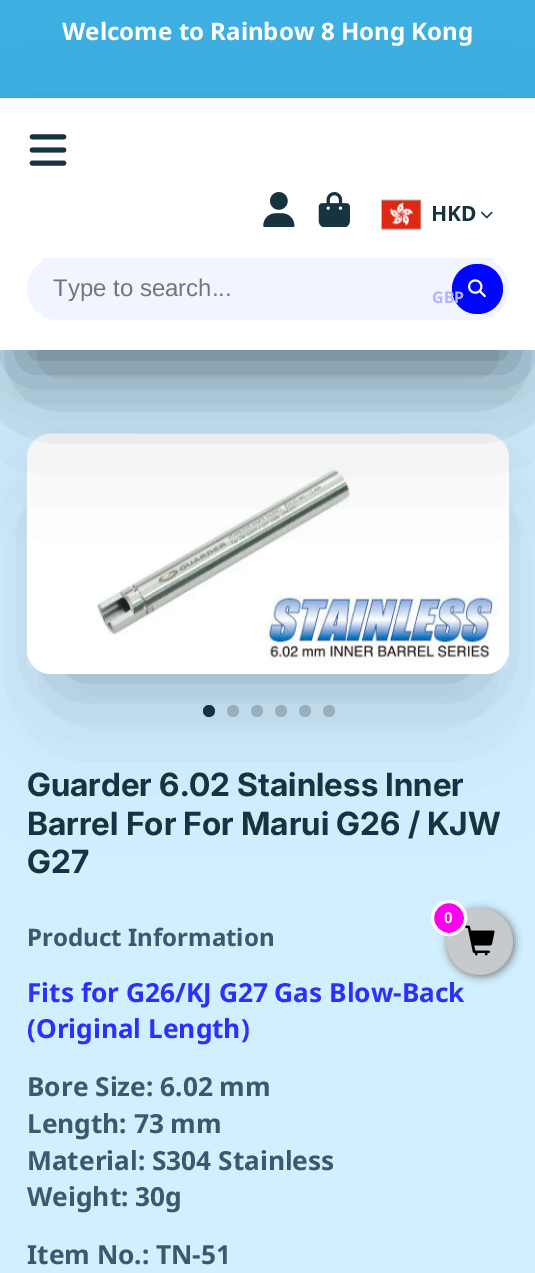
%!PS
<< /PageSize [535 1273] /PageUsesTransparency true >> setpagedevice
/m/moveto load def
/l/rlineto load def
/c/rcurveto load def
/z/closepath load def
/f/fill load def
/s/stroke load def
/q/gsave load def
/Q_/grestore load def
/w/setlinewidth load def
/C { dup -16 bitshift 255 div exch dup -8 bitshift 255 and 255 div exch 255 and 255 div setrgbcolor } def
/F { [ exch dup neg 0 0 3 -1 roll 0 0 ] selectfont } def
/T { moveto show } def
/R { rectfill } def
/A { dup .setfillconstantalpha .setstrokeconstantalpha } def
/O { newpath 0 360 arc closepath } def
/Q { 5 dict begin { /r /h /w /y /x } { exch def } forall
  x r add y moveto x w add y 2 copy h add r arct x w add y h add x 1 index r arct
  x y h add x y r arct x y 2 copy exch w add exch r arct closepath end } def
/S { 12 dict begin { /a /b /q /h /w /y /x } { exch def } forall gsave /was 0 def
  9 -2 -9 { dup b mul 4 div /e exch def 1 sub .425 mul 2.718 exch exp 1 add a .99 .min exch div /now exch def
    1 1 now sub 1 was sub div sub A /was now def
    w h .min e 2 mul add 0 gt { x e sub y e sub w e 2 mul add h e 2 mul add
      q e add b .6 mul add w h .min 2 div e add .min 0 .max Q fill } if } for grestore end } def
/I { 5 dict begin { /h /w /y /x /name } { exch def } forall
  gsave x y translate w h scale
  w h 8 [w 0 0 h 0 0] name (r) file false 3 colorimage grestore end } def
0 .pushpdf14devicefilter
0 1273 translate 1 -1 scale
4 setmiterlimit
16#D1EFFF C
0 0 535 1273 R
16#3EAFE1 C
0 0 535 98 R
/NotoSans-Bold 24.1 F
16#FFFFFF C
(Welcome to Rainbow 8 Hong Kong) 62 40 T
16#163340 C
209 711 6 O f
16#A7BFCC C
233 711 6 O f
257 711 6 O f
281 711 6 O f
305 711 6 O f
329 711 6 O f
16#0F242D C
66 513 404 161 0 39.5 .3 S
54 525 429 188 0 65.5 .1 S
16#FFFFFF C
27 434 482 240 24 Q f
(7.rgb) 27 433 481 234 I
16#0F242D C
21 158 494 210 0 29 .4 S
21 185 494 210 0 65.5 .3 S
16#FFFFFF C
0 98 535 252 R
(1.rgb) 29 134 38 32 I
16#F2F5FF C
27 258 482 60 30 Q f
42 258 452 60 R
27 258 482 62 31 Q f
/LiberationSans-Regular 24 F
16#757575 C
(Type to search...) 53 296 T
16#0006FF C
452 264 51 50 25 Q f
(2.rgb) 468 279 18 18 I
(3.rgb) 263 192 32 35 I
(4.rgb) 318 192 32 35 I
(5.rgb) 381 199 41 32 I
/NotoSans-Bold 21 F
16#163340 C
(HKD) 431 221 T
/NotoSans-Bold 16 F
16#B1B4FF C
(GBP) 432 303 T
(6.rgb) 480 211 13 8 I
/Inter-Bold 32 F
16#163340 C
(Guarder 6.02 Stainless Inner) 27 796 T
(Barrel For For Marui G26 / KJW) 27 835 T
(G27) 27 873 T
/NotoSans-Bold 24.1 F
16#3B5966 C
(Product Information) 27 946 T
/NotoSans-Bold 26.25 F
16#2A30FF C
(Fits for G26/KJ G27 Gas Blow-Back) 27 1002 T
(\(Original Length\)) 27 1038 T
16#3B5966 C
(Bore Size: 6.02 mm) 27 1096 T
(Length: 73 mm) 27 1133 T
(Material: S304 Stainless) 27 1170 T
(Weight: 30g) 27 1206 T
(Item No.: TN-51) 27 1264 T
q
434 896 m 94 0 l 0 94 l -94 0 l z 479.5 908 m 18.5 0 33.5 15 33.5 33.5 c 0 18.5 -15 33.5 -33.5 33.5 c -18.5 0 -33.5 -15 -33.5 -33.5 c 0 -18.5 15 -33.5 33.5 -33.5 c z eoclip newpath
16#808080 C
447 909 68 68 34 4 1 S
Q_
0.9 A
16#C6C6C6 C
479.5 941.5 33.5 O f
1 A
(8.rgb) 465 925 30 31 I
16#FF00EC C
449 918 16.5 O q f Q_
16#FFFFFF C
3 w
s
/Roboto-Bold 15 F
(0) 444 923 T
.poppdf14devicefilter showpage
